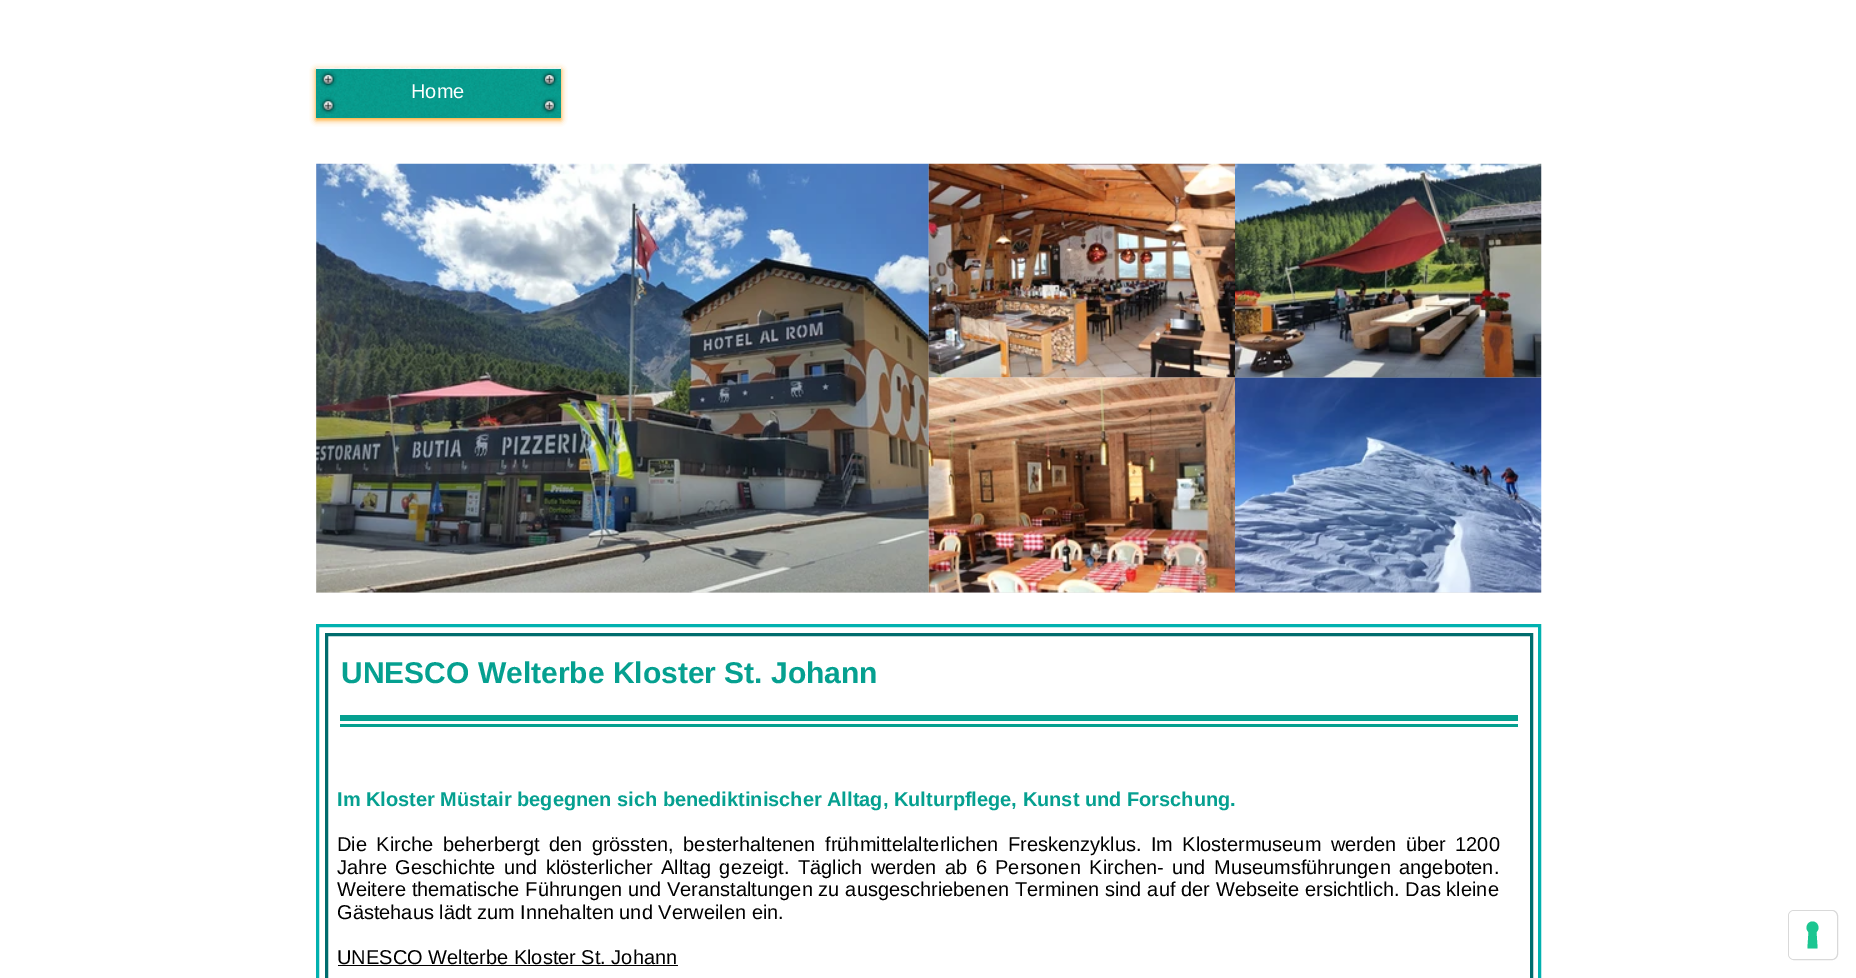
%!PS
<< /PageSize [1856 978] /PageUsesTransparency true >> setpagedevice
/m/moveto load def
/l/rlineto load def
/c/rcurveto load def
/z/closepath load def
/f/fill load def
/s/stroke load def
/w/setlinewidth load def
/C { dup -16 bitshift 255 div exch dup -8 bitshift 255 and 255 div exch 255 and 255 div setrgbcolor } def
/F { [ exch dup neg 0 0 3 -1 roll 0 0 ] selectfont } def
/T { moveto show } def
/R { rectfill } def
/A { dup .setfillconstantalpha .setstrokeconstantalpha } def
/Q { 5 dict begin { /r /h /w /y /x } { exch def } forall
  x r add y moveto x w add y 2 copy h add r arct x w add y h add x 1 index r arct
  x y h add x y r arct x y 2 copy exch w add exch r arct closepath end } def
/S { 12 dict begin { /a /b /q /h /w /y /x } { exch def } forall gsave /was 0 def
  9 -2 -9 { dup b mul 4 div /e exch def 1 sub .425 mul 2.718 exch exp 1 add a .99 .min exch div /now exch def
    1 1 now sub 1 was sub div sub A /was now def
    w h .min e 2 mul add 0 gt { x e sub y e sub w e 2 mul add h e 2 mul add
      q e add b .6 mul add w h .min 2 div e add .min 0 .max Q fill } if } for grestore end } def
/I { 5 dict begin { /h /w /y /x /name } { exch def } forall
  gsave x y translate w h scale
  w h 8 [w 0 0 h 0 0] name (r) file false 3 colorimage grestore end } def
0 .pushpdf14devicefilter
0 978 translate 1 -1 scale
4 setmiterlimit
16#FFFFFF C
0 0 1856 978 R
16#FF9C08 C
316 70 245 50 0 3 1 S
16#059E8F C
316 68 245 50 R
(1.rgb) 316 67 245 51 I
0.92 A
16#FFFFFF C
316 68 245 1 R
1 A
(2.rgb) 320 71 17 17 I
(3.rgb) 541 71 17 17 I
/LiberationSans-Regular 20 F
(Home) 411 98 T
(4.rgb) 320 97 17 17 I
(5.rgb) 541 97 17 17 I
16#01B1AF C
3 w
317.5 625.5 1222 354 rectstroke
16#006C6D C
326.5 634.5 1205 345 rectstroke
/LiberationSans-Bold 30 F
16#05A090 C
(UNESCO Welterbe Kloster St. Johann) 341 683 T
340 715 1178 6 R
340 724 1178 3 R
/LiberationSans-Bold 20 F
(Im Kloster Müstair begegnen sich benediktinischer Alltag, Kulturpflege, Kunst und Forschung.) 337 806 T
/LiberationSans-Regular 20 F
16#000000 C
337 851 m 3.9 0 32 (Die Kirche beherbergt den grössten, besterhaltenen frühmittelalterlichen Freskenzyklus. Im Klostermuseum werden über 1200) widthshow
337 874 m 2.9 0 32 (Jahre Geschichte und klösterlicher Alltag gezeigt. Täglich werden ab 6 Personen Kirchen- und Museumsführungen angeboten.) widthshow
337 896 m .25 0 32 (Weitere thematische Führungen und Veranstaltungen zu ausgeschriebenen Terminen sind auf der Webseite ersichtlich. Das kleine) widthshow
(Gästehaus lädt zum Innehalten und Verweilen ein.) 337 919 T
(UNESCO Welterbe Kloster St. Johann) 337 964 T
338 965 340 1 R
16#E8E6E6 C
316 164 613 429 R
(6.rgb) 316 163 613 430 I
(7.rgb) 928 163 307 215 I
929 592 612 1 R
(8.rgb) 928 377 307 216 I
(9.rgb) 1235 163 307 215 I
(10.rgb) 1235 377 307 216 I
16#D9D9D9 C
1 w
1788.5 910.5 49 49 5.5 Q s
16#FFFFFF C
1789 911 47 48 5 Q f
16#1CC691 C
1812.5 921.5 m 5.5 0 8 7 4 10.5 c 1 16.5 l -10 0 l 1 -16.5 l -4 -3.5 -1.5 -10.5 4 -10.5 c z eofill
.poppdf14devicefilter showpage
